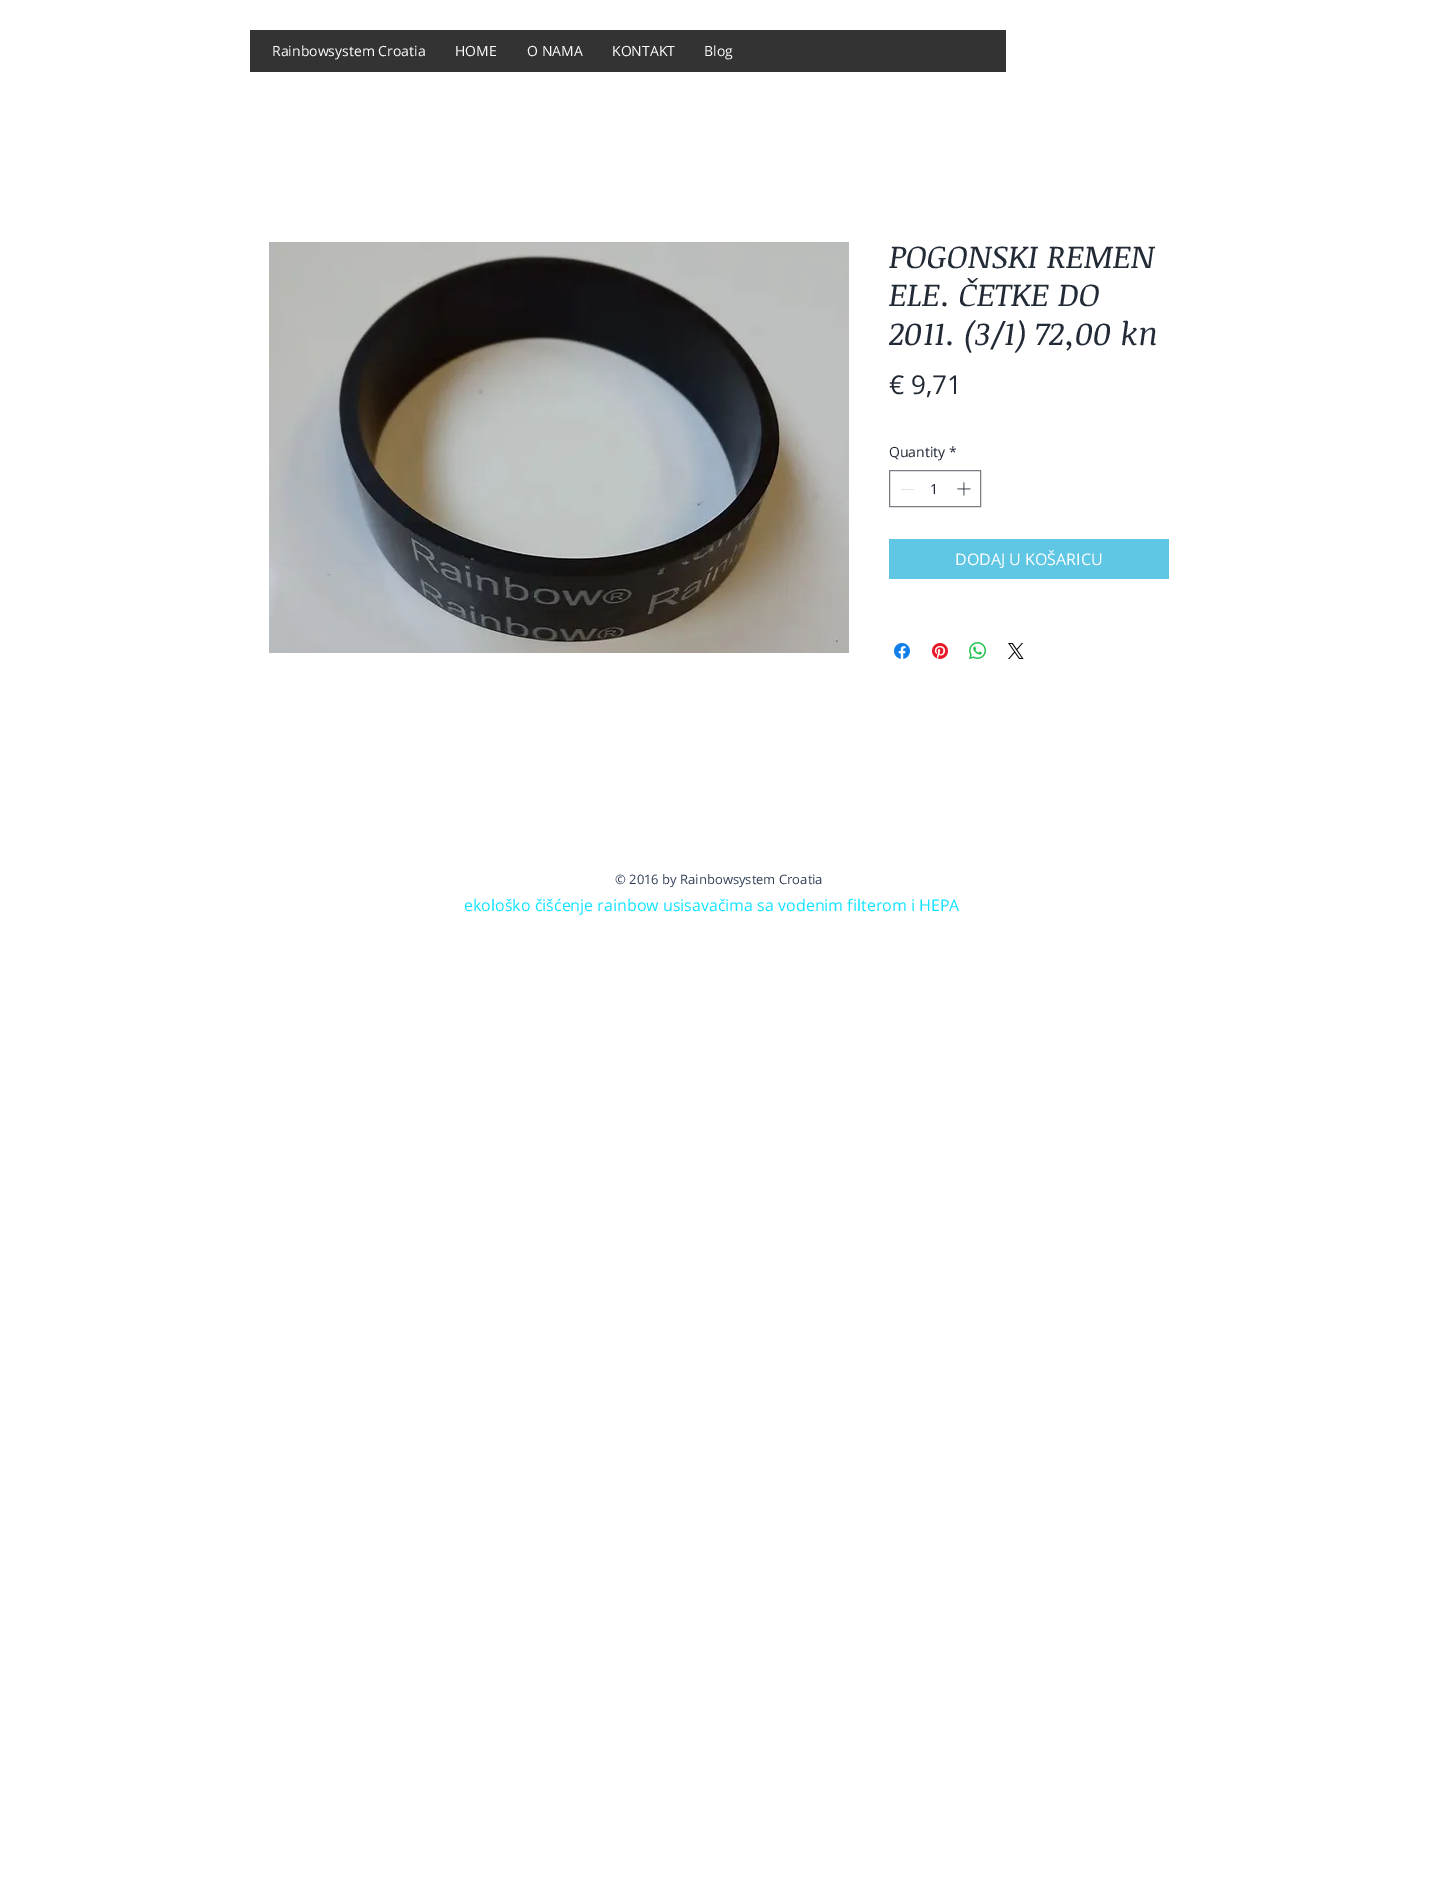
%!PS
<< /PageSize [1437 1889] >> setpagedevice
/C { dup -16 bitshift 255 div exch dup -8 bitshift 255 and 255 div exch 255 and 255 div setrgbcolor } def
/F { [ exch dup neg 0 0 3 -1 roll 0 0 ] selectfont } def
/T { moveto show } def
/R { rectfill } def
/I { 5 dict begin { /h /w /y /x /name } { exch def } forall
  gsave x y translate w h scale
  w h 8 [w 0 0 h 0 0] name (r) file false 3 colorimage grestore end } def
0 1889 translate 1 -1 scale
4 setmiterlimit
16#FFFFFF C
0 0 1437 1889 R
16#333333 C
250 30 756 42 R
/OpenSans-Regular 14 F
16#FFFFFF C
(Rainbowsystem Croatia) 272 56 T
(HOME) 455 56 T
(O NAMA) 527 56 T
(KONTAKT) 612 56 T
(Blog) 704 56 T
(1.rgb) 269 242 580 411 I
/NoticiaText-Italic 32 F
16#222A36 C
(POGONSKI REMEN) 889 268 T
(ELE. ČETKE DO) 889 306 T
(2011. \(3/1\) 72,00 kn) 889 345 T
/OpenSans-Regular 26 F
(€ 9,71) 889 394 T
/OpenSans-Regular 14 F
(Quantity) 889 457 T
(*) 949 457 T
16#7A7F86 C
889.5 470.5 91 36 rectstroke
16#E3E3E3 C
901 489 13 1 R
16#222A36 C
(1) 930 494 T
(2.rgb) 957 482 14 14 I
16#5FC6E3 C
889 539 280 40 R
/OpenSans-Regular 16 F
16#FFFFFF C
(DODAJ U KOŠARICU) 955 565 T
(3.rgb) 894 643 16 16 I
(4.rgb) 932 643 16 16 I
(5.rgb) 969 642 17 17 I
(6.rgb) 1008 643 16 16 I
/OpenSans-Regular 13 F
16#324157 C
(© 2016 by Rainbowsystem Croatia) 615 884 T
/OpenSans-Regular 16 F
16#0FE3FF C
(ekološko čišćenje rainbow usisavačima sa vodenim filterom i HEPA) 464 911 T
showpage
